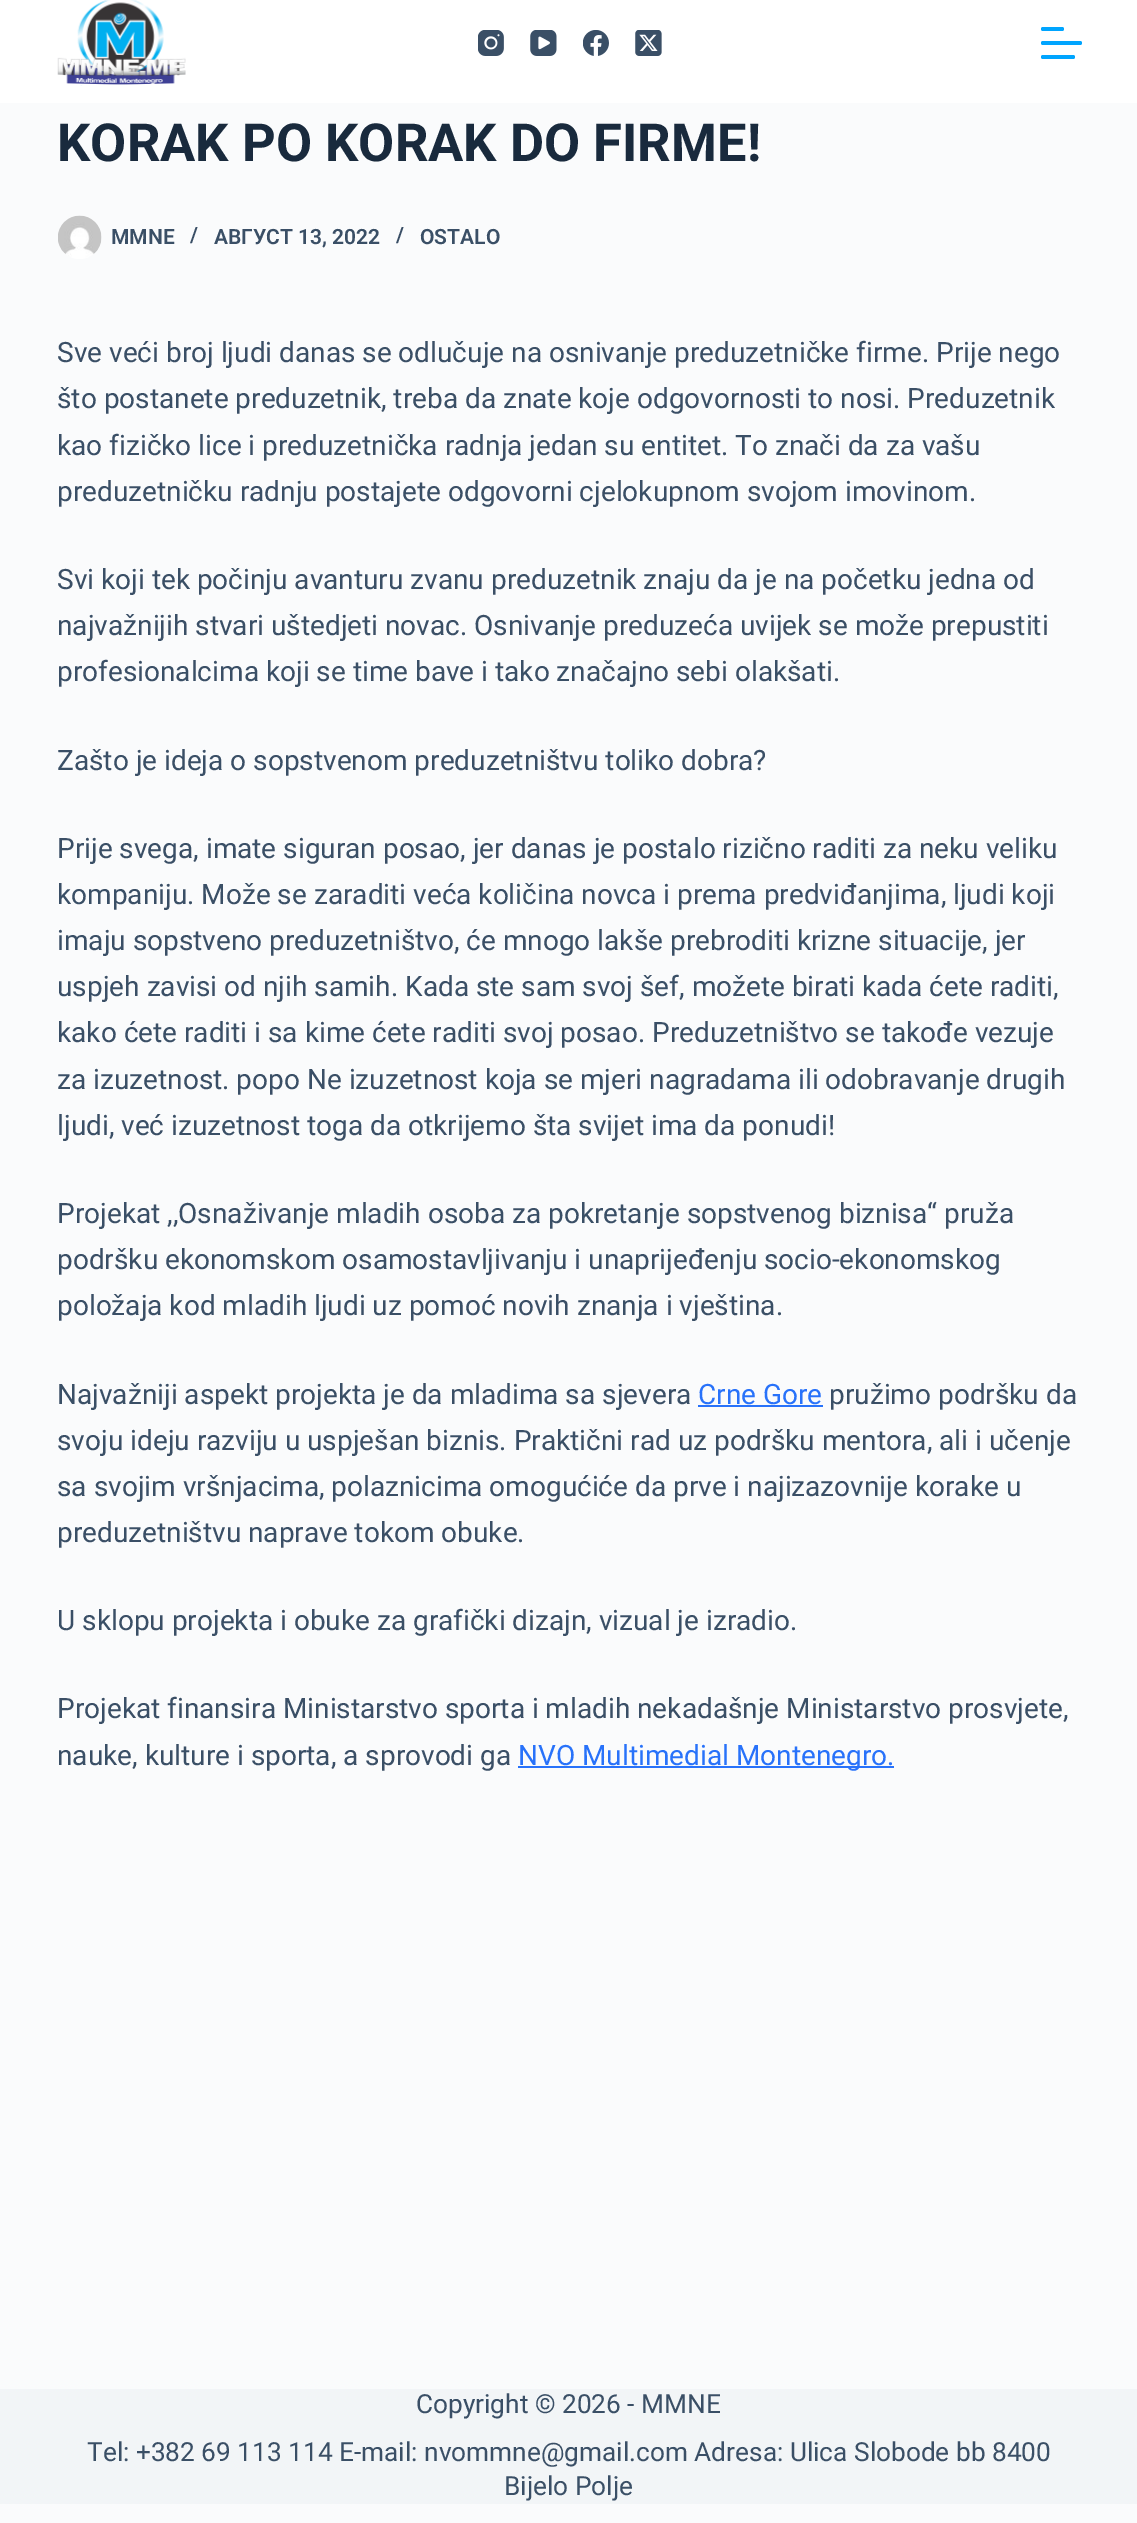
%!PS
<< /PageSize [1137 2523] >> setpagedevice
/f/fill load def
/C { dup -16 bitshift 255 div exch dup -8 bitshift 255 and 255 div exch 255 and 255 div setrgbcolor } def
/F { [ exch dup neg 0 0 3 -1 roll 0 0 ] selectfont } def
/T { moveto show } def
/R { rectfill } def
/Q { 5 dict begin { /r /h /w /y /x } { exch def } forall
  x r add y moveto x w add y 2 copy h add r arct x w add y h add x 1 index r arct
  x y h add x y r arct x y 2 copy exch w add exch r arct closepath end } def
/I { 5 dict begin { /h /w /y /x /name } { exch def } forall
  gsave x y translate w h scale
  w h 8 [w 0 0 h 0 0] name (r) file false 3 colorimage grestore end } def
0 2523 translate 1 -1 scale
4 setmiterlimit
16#FAFBFC C
0 0 1137 2523 R
16#FFFFFF C
0 0 1137 103 R
(1.rgb) 57 0 129 86 I
(2.rgb) 478 30 26 26 I
(3.rgb) 530 30 27 26 I
(4.rgb) 583 30 26 26 I
(5.rgb) 635 30 27 26 I
16#00A5FF C
1041 27 23 4 2 Q f
1041 41 41 4 2 Q f
1041 55 34 4 2 Q f
/Roboto-Bold 52.5 F
16#192A3D C
(KORAK PO KORAK DO FIRME!) 57 161 T
(6.rgb) 58 215 44 44 I
/Roboto-SemiBold 21 F
16#3A4F66 C
(MMNE) 111 244 T
(/) 190 242 T
(АВГУСТ 13, 2022) 214 244 T
(/) 396 242 T
(OSTALO) 420 244 T
/Roboto-Regular 28 F
(Sve veći broj ljudi danas se odlučuje na osnivanje preduzetničke firme. Prije nego) 57 362 T
(što postanete preduzetnik, treba da znate koje odgovornosti to nosi. Preduzetnik) 57 408 T
(kao fizičko lice i preduzetnička radnja jedan su entitet. To znači da za vašu) 57 455 T
(preduzetničku radnju postajete odgovorni cjelokupnom svojom imovinom.) 57 501 T
(Svi koji tek počinju avanturu zvanu preduzetnik znaju da je na početku jedna od) 57 589 T
(najvažnijih stvari uštedjeti novac. Osnivanje preduzeća uvijek se može prepustiti) 57 635 T
(profesionalcima koji se time bave i tako značajno sebi olakšati.) 57 681 T
(Zašto je ideja o sopstvenom preduzetništvu toliko dobra?) 57 770 T
(Prije svega, imate siguran posao, jer danas je postalo rizično raditi za neku veliku) 57 858 T
(kompaniju. Može se zaraditi veća količina novca i prema predviđanjima, ljudi koji) 57 904 T
(imaju sopstveno preduzetništvo, će mnogo lakše prebroditi krizne situacije, jer) 57 950 T
(uspjeh zavisi od njih samih. Kada ste sam svoj šef, možete birati kada ćete raditi,) 57 996 T
(kako ćete raditi i sa kime ćete raditi svoj posao. Preduzetništvo se takođe vezuje) 57 1042 T
(za izuzetnost. popo Ne izuzetnost koja se mjeri nagradama ili odobravanje drugih) 57 1089 T
(ljudi, već izuzetnost toga da otkrijemo šta svijet ima da ponudi!) 57 1135 T
(Projekat ,,Osnaživanje mladih osoba za pokretanje sopstvenog biznisa“ pruža) 57 1223 T
(podršku ekonomskom osamostavljivanju i unaprijeđenju socio-ekonomskog) 57 1269 T
(položaja kod mladih ljudi uz pomoć novih znanja i vještina.) 57 1315 T
(Najvažniji aspekt projekta je da mladima sa sjevera) 57 1404 T
16#2872FA C
(Crne Gore) 698 1404 T
698 1405 125 2 R
16#3A4F66 C
(pružimo podršku da) 829 1404 T
(svoju ideju razviju u uspješan biznis. Praktični rad uz podršku mentora, ali i učenje) 57 1450 T
(sa svojim vršnjacima, polaznicima omogućiće da prve i najizazovnije korake u) 57 1496 T
(preduzetništvu naprave tokom obuke.) 57 1542 T
(U sklopu projekta i obuke za grafički dizajn, vizual je izradio.) 57 1630 T
(Projekat finansira Ministarstvo sporta i mladih nekadašnje Ministarstvo prosvjete,) 57 1718 T
(nauke, kulture i sporta, a sprovodi ga) 57 1765 T
16#2872FA C
518 1766 376 2 R
(NVO Multimedial Montenegro.) 518 1765 T
16#F2F5F7 C
0 2389 1137 115 R
/Roboto-Regular 26.25 F
16#3A4F66 C
(Copyright © 2026 - MMNE) 416 2413 T
(Tel: +382 69 113 114 E-mail: nvommne@gmail.com Adresa: Ulica Slobode bb 8400) 87 2461 T
(Bijelo Polje) 504 2495 T
showpage
